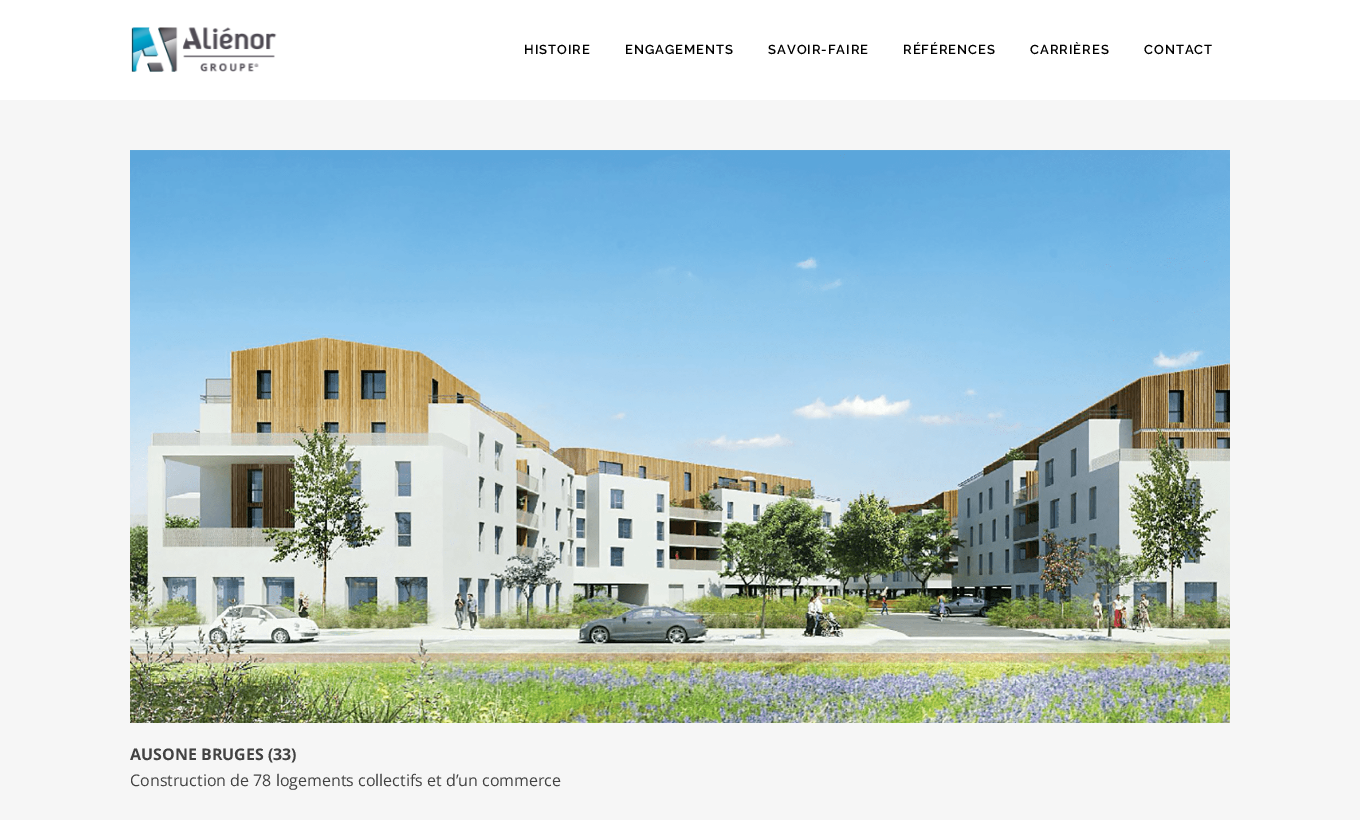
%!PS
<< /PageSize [1360 820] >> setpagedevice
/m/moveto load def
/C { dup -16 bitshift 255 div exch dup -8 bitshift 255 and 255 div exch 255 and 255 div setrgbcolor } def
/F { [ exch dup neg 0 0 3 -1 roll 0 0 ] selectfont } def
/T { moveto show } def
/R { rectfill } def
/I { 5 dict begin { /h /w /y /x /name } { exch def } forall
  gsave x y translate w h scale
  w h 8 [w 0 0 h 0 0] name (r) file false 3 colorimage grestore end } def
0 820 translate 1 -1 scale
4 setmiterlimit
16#F6F6F6 C
0 0 1360 820 R
16#FFFFFF C
0 0 1360 100 R
(1.rgb) 131 27 146 45 I
/Raleway-SemiBold 13 F
16#000000 C
524 54 m 1 0 (HISTOIRE) ashow
625 54 m 1 0 (ENGAGEMENTS) ashow
768 54 m 1 0 (SAVOIR-FAIRE) ashow
903 54 m 1 0 (RÉFÉRENCES) ashow
1030 54 m 1 0 (CARRIÈRES) ashow
1144 54 m 1 0 (CONTACT) ashow
(2.rgb) 130 150 1100 573 I
/OpenSans-Bold 16 F
16#424242 C
(AUSONE BRUGES \(33\)) 130 760 T
/OpenSans-Regular 16 F
(Construction de 78 logements collectifs et d’un commerce) 130 786 T
showpage
